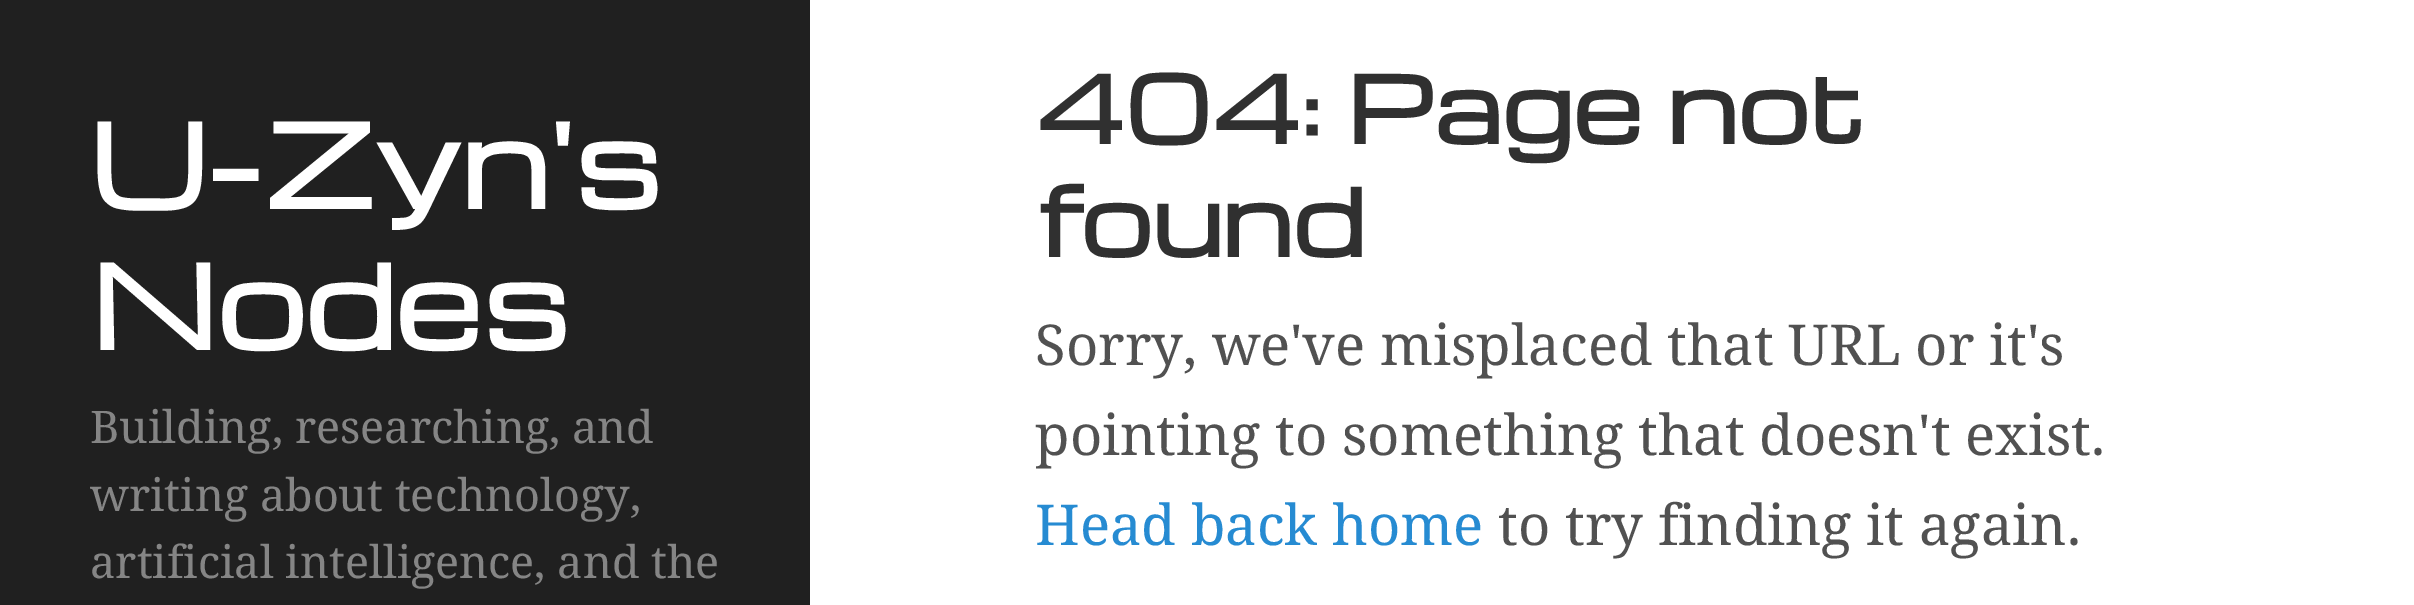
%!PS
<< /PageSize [2414 605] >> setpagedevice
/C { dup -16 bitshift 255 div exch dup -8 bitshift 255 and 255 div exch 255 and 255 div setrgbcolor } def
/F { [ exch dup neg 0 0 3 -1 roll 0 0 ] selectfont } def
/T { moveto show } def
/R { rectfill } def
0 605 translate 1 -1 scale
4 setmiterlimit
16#FFFFFF C
0 0 2414 605 R
16#202020 C
0 0 810 605 R
/Michroma-Bold 112.5 F
16#FFFFFF C
(U-Zyn's) 90 209 T
(Nodes) 90 350 T
/NotoSerif-Regular 45 F
16#858585 C
(Building, researching, and) 90 443 T
(writing about technology,) 90 511 T
(artificial intelligence, and the) 90 578 T
/Michroma-Bold 90 F
16#303030 C
(404: Page not) 1035 144 T
(found) 1035 257 T
/NotoSerif-Regular 56.25 F
16#515151 C
(Sorry, we've misplaced that URL or it's) 1035 365 T
(pointing to something that doesn't exist.) 1035 455 T
16#268BD2 C
(Head back home) 1035 545 T
16#515151 C
(to try finding it again.) 1498 545 T
showpage
